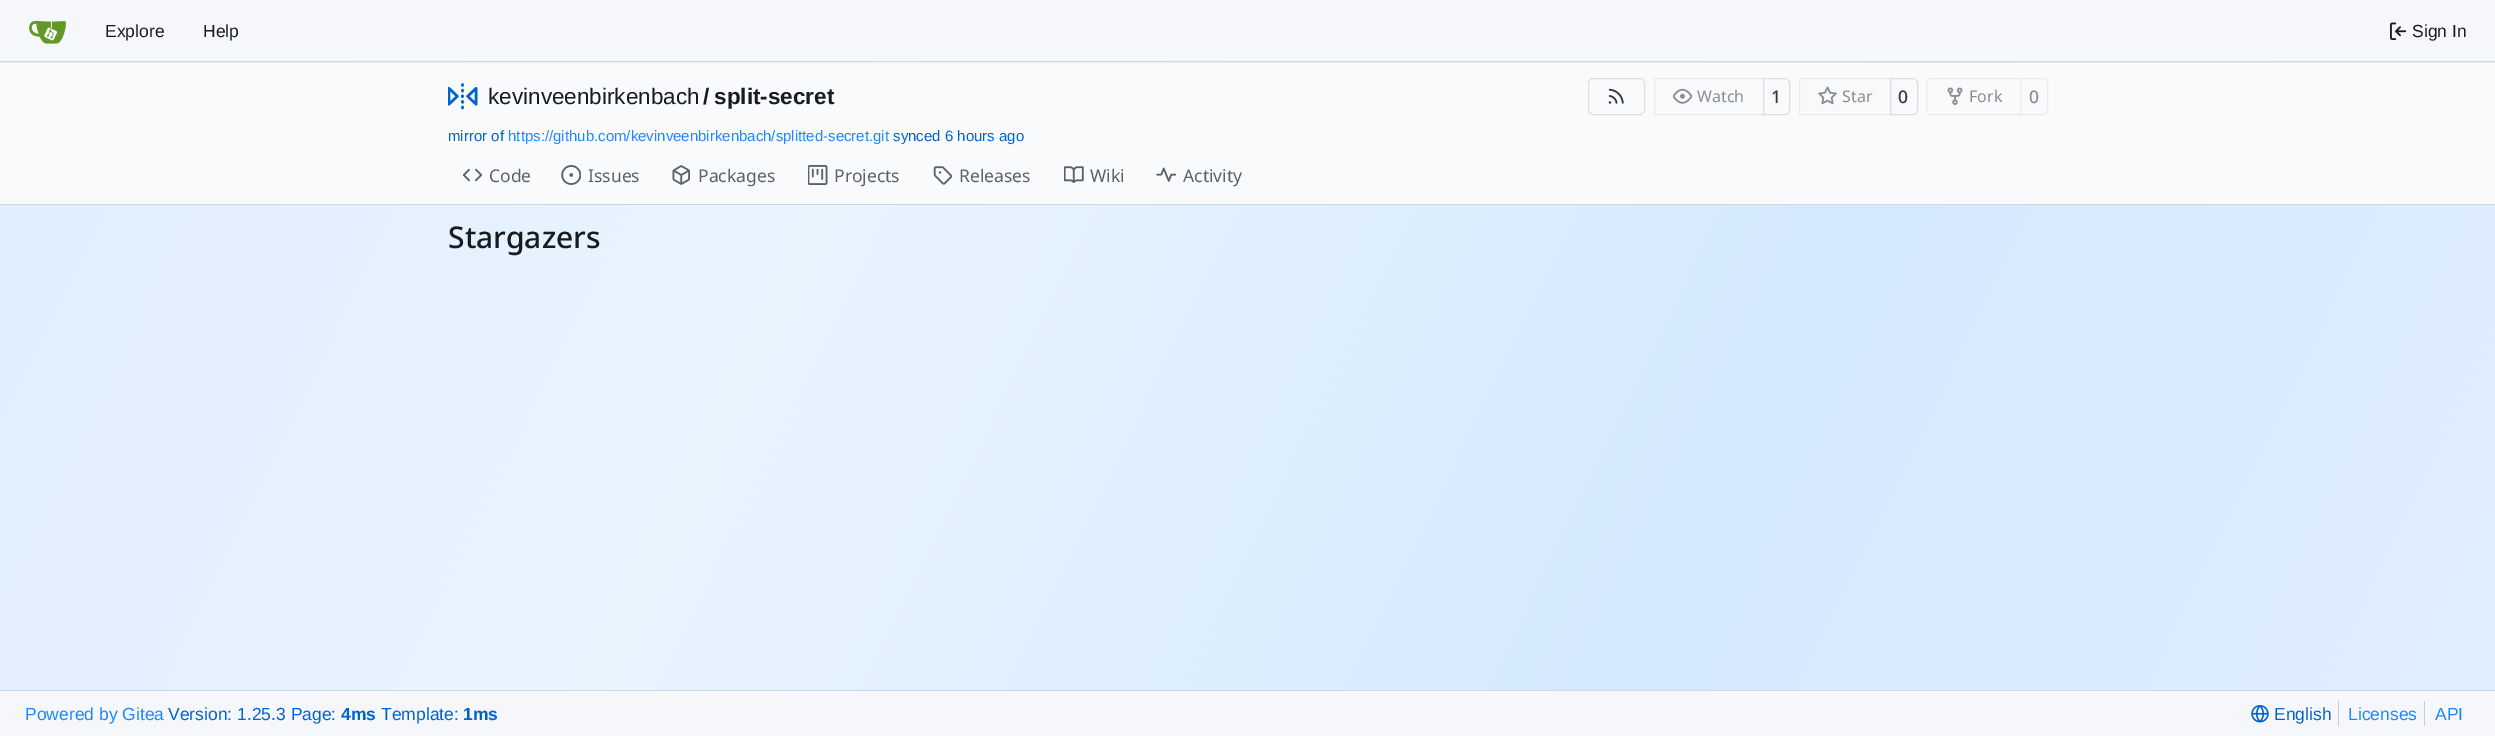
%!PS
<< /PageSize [2495 736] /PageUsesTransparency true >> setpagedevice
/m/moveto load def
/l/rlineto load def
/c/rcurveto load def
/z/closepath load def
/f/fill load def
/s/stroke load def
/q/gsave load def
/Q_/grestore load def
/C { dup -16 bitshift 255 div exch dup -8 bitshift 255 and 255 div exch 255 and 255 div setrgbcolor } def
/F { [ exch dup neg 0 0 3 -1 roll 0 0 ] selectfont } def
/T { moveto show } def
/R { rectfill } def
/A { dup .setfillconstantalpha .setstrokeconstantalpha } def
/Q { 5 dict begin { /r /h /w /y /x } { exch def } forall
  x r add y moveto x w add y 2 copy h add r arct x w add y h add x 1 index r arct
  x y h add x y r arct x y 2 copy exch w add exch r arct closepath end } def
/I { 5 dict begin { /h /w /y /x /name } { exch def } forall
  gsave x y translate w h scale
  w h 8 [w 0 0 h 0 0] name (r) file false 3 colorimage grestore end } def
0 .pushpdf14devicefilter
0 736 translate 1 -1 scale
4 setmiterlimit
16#FFFFFF C
0 0 2495 736 R
q 0 62 m 2495 0 l 0 628 l -2495 0 l z clip newpath
<< /ShadingType 2 /ColorSpace /DeviceRGB /Coords [2400 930 95 -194] /Extend [true true] /Function << /FunctionType 3 /Domain [0 1] /Functions [<< /FunctionType 2 /Domain [0 1] /C0 [.878 .933 1] /C1 [.835 .914 .996] /N 1 >> << /FunctionType 2 /Domain [0 1] /C0 [.835 .914 .996] /C1 [.918 .957 1] /N 1 >> << /FunctionType 2 /Domain [0 1] /C0 [.918 .957 1] /C1 [.878 .933 1] /N 1 >>] /Bounds [.33 .67] /Encode [0 1 0 1 0 1] >> >> shfill Q_
16#F6F7FA C
0 0 2495 61 R
16#D0D7DE C
0 61 2495 1 R
(1.rgb) 29 20 37 24 I
/LiberationSans-Regular 17.5 F
16#181C21 C
(Explore) 105 37 T
(Help) 203 37 T
(2.rgb) 2390 22 17 18 I
(Sign In) 2412 37 T
16#F9FAFB C
0 63 2495 141 R
(3.rgb) 448 83 30 27 I
/LiberationSans-Regular 22.5 F
16#181C21 C
(kevinveenbirkenbach) 488 104 T
/LiberationSans-Bold 22.5 F
(/) 703 104 T
(split-secret) 714 104 T
16#DDDEE1 C
1588.5 78.5 56 36 4.5 Q s
(4.rgb) 1608 88 16 16 I
1763.5 78.5 m 21.5 0 l 2.5 0 4.5 2 4.5 4.5 c 0 27 l 0 2.5 -2 4.5 -4.5 4.5 c -21.5 0 l z s
0.55 A
16#F8F9FB C
1659 78 m 105 0 l 0 37 l -105 0 l -3 0 -5 -2 -5 -5 c 0 -27 l 0 -3 2 -5 5 -5 c z f
0.06 A
16#000017 C
1654.5 78.5 109 36 rectstroke
1 A
(5.rgb) 1673 88 20 16 I
/NotoSans-Regular 16 F
16#8A8E91 C
(Watch) 1697 102 T
/NotoSans-Medium 17.5 F
16#30363B C
(1) 1771 103 T
16#DDDEE1 C
1890.5 78.5 m 22.5 0 l 2.5 0 4.5 2 4.5 4.5 c 0 27 l 0 2.5 -2 4.5 -4.5 4.5 c -22.5 0 l z s
0.55 A
16#F8F9FB C
1804 78 m 87 0 l 0 37 l -87 0 l -3 0 -5 -2 -5 -5 c 0 -27 l 0 -3 2 -5 5 -5 c z f
0.06 A
16#000017 C
1799.5 78.5 91 36 rectstroke
1 A
(6.rgb) 1818 86 19 19 I
/NotoSans-Regular 16 F
16#8A8E91 C
(Star) 1842 102 T
/NotoSans-Medium 17.5 F
16#30363B C
(0) 1898 103 T
16#E9EAED C
1931 78.5 m 89.5 0 l 0 36 l -89.5 0 l -2.5 0 -4.5 -2 -4.5 -4.5 c 0 -27 l 0 -2.5 2 -4.5 4.5 -4.5 c z s
(7.rgb) 1947 87 16 18 I
/NotoSans-Regular 16 F
16#8A8E91 C
(Fork) 1969 102 T
16#F8F9FB C
2020.5 78.5 m 22.5 0 l 2.5 0 4.5 2 4.5 4.5 c 0 27 l 0 2.5 -2 4.5 -4.5 4.5 c -22.5 0 l z q f Q_
16#E9EAED C
s
/NotoSans-Medium 17.5 F
16#8A8E91 C
(0) 2029 103 T
/LiberationSans-Regular 15 F
16#0062CE C
(mirror of) 448 141 T
16#1C88FF C
(https://github.com/kevinveenbirkenbach/splitted-secret.git) 508 141 T
16#0062CE C
(synced 6 hours ago) 893 141 T
(8.rgb) 463 168 20 14 I
/NotoSans-Regular 17.5 F
16#5B6167 C
(Code) 489 182 T
(9.rgb) 561 165 20 20 I
(Issues) 588 182 T
(10.rgb) 672 165 18 20 I
(Packages) 698 182 T
(11.rgb) 808 165 20 20 I
(Projects) 834 182 T
(12.rgb) 933 166 20 19 I
(Releases) 959 182 T
(13.rgb) 1064 166 20 18 I
(Wiki) 1090 182 T
(14.rgb) 1156 167 20 15 I
(Activity) 1183 182 T
16#D0D7DE C
0 204 2495 1 R
/NotoSans-Medium 30 F
16#181C21 C
(Stargazers) 448 248 T
16#F6F7FA C
0 691 2495 45 R
16#D0D7DE C
0 690 2495 1 R
/LiberationSans-Regular 17.5 F
16#1C88FF C
(Powered by Gitea) 25 720 T
16#0062CE C
(Version: 1.25.3 Page:) 168 720 T
/LiberationSans-Bold 17.5 F
(4ms) 341 720 T
/LiberationSans-Regular 17.5 F
(Template:) 381 720 T
/LiberationSans-Bold 17.5 F
(1ms) 463 720 T
(15.rgb) 2251 705 18 18 I
/LiberationSans-Regular 17.5 F
(English) 2274 720 T
16#C7CED5 C
2338 701 1 25 R
16#1C88FF C
(Licenses) 2348 720 T
16#C7CED5 C
2424 701 1 25 R
16#1C88FF C
(API) 2435 720 T
.poppdf14devicefilter showpage
